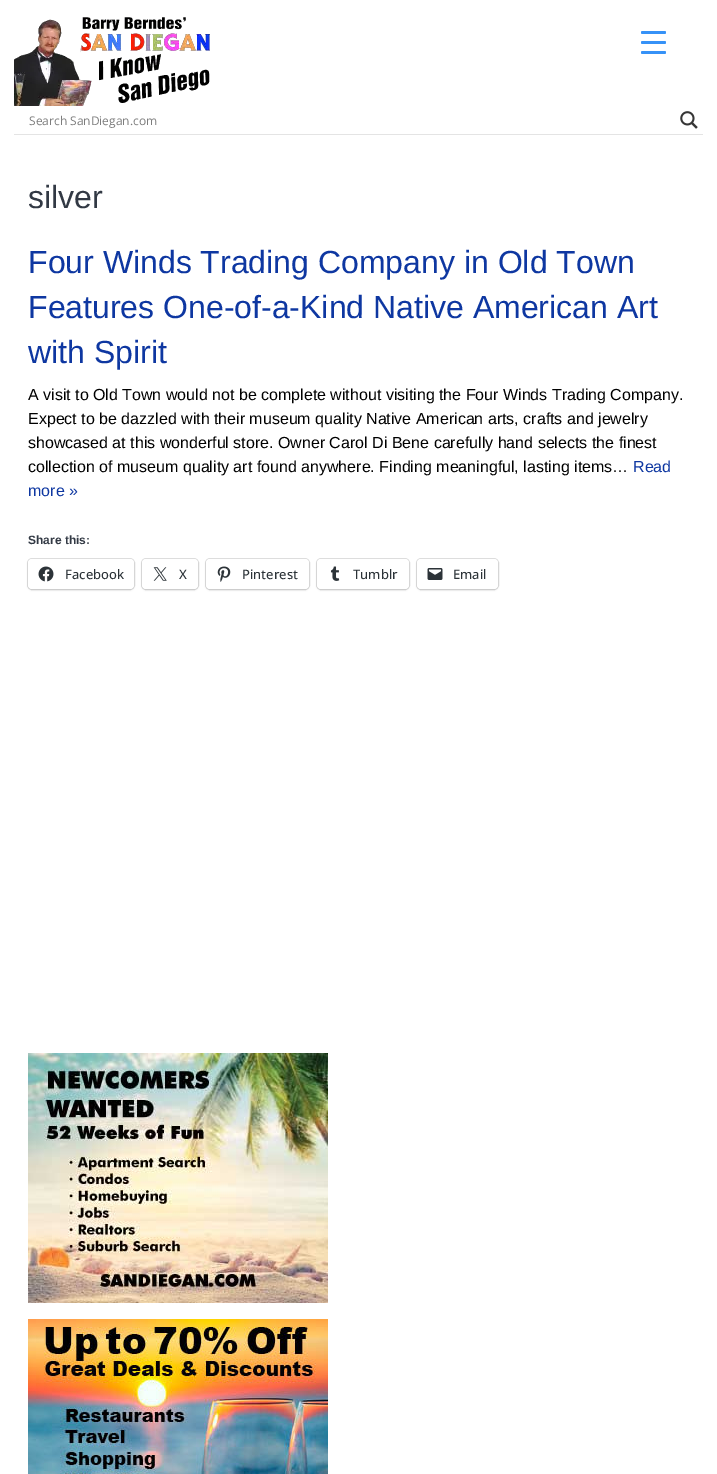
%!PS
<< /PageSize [717 1474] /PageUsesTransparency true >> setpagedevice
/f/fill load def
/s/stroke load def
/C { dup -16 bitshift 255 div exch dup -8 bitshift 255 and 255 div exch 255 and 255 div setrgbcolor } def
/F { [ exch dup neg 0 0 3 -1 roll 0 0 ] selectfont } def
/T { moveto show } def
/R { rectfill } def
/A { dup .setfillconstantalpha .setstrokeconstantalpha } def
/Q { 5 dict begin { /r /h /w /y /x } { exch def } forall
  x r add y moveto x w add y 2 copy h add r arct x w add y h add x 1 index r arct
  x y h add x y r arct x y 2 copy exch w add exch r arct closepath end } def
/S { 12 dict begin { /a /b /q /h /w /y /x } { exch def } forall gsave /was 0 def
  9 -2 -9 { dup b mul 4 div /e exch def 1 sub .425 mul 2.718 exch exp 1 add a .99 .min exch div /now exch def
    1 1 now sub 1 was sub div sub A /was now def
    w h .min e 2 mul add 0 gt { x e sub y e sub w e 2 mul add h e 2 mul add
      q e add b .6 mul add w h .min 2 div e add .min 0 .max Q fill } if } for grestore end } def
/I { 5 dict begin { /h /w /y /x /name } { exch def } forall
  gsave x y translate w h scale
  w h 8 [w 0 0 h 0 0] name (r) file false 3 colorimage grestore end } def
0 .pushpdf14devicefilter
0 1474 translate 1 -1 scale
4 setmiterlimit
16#FFFFFF C
0 0 717 1474 R
16#3692F7 C
641 41 25 3 1.5 Q f
641 31 25 3 1.5 Q f
641 51 25 3 1.5 Q f
(1.rgb) 14 17 196 89 I
16#E4E4E4 C
14 134 689 1 R
/OpenSans-Regular 12 F
16#7D7D7D C
(Search SanDiegan.com) 29 125 T
(2.rgb) 680 111 18 18 I
/LiberationSans-Regular 32 F
16#323944 C
(silver) 28 208 T
16#0E37A1 C
(Four Winds Trading Company in Old Town) 28 273 T
(Features One-of-a-Kind Native American Art) 28 318 T
(with Spirit) 28 363 T
/LiberationSans-Regular 16 F
16#000000 C
(A visit to Old Town would not be complete without visiting the Four Winds Trading Company.) 28 400 T
(Expect to be dazzled with their museum quality Native American arts, crafts and jewelry) 28 424 T
(showcased at this wonderful store. Owner Carol Di Bene carefully hand selects the finest) 28 448 T
(collection of museum quality art found anywhere. Finding meaningful, lasting items…) 28 472 T
16#0E37A1 C
(Read) 633 472 T
(more ») 28 496 T
/LiberationSans-Bold 12 F
16#323944 C
(Share this:) 28 544 T
16#E0E0E0 C
27.5 558.5 107 31 4.5 Q s
16#000000 C
28 560 106 30 4 1 .12 S
16#FFFFFF C
28 559 106 30 4 Q f
(3.rgb) 38 566 16 16 I
/OpenSans-Medium 13 F
16#2C3338 C
(Facebook) 65 579 T
16#E0E0E0 C
141.5 558.5 57 31 4.5 Q s
16#000000 C
142 560 56 30 4 1 .12 S
16#FFFFFF C
142 559 56 30 4 Q f
(4.rgb) 153 567 14 14 I
16#2C3338 C
(X) 179 579 T
16#E0E0E0 C
205.5 558.5 104 31 4.5 Q s
16#000000 C
206 560 103 30 4 1 .12 S
16#FFFFFF C
206 559 103 30 4 Q f
(5.rgb) 217 566 14 16 I
16#2C3338 C
(Pinterest) 242 579 T
16#E0E0E0 C
316.5 558.5 93 31 4.5 Q s
16#000000 C
317 560 92 30 4 1 .12 S
16#FFFFFF C
317 559 92 30 4 Q f
(6.rgb) 330 566 10 15 I
16#2C3338 C
(Tumblr) 353 579 T
16#E0E0E0 C
416.5 558.5 82 31 4.5 Q s
16#000000 C
417 560 81 30 4 1 .12 S
16#FFFFFF C
417 559 81 30 4 Q f
(7.rgb) 427 568 16 12 I
16#2C3338 C
(Email) 453 579 T
(8.rgb) 28 1053 300 250 I
(9.rgb) 28 1319 300 155 I
.poppdf14devicefilter showpage
